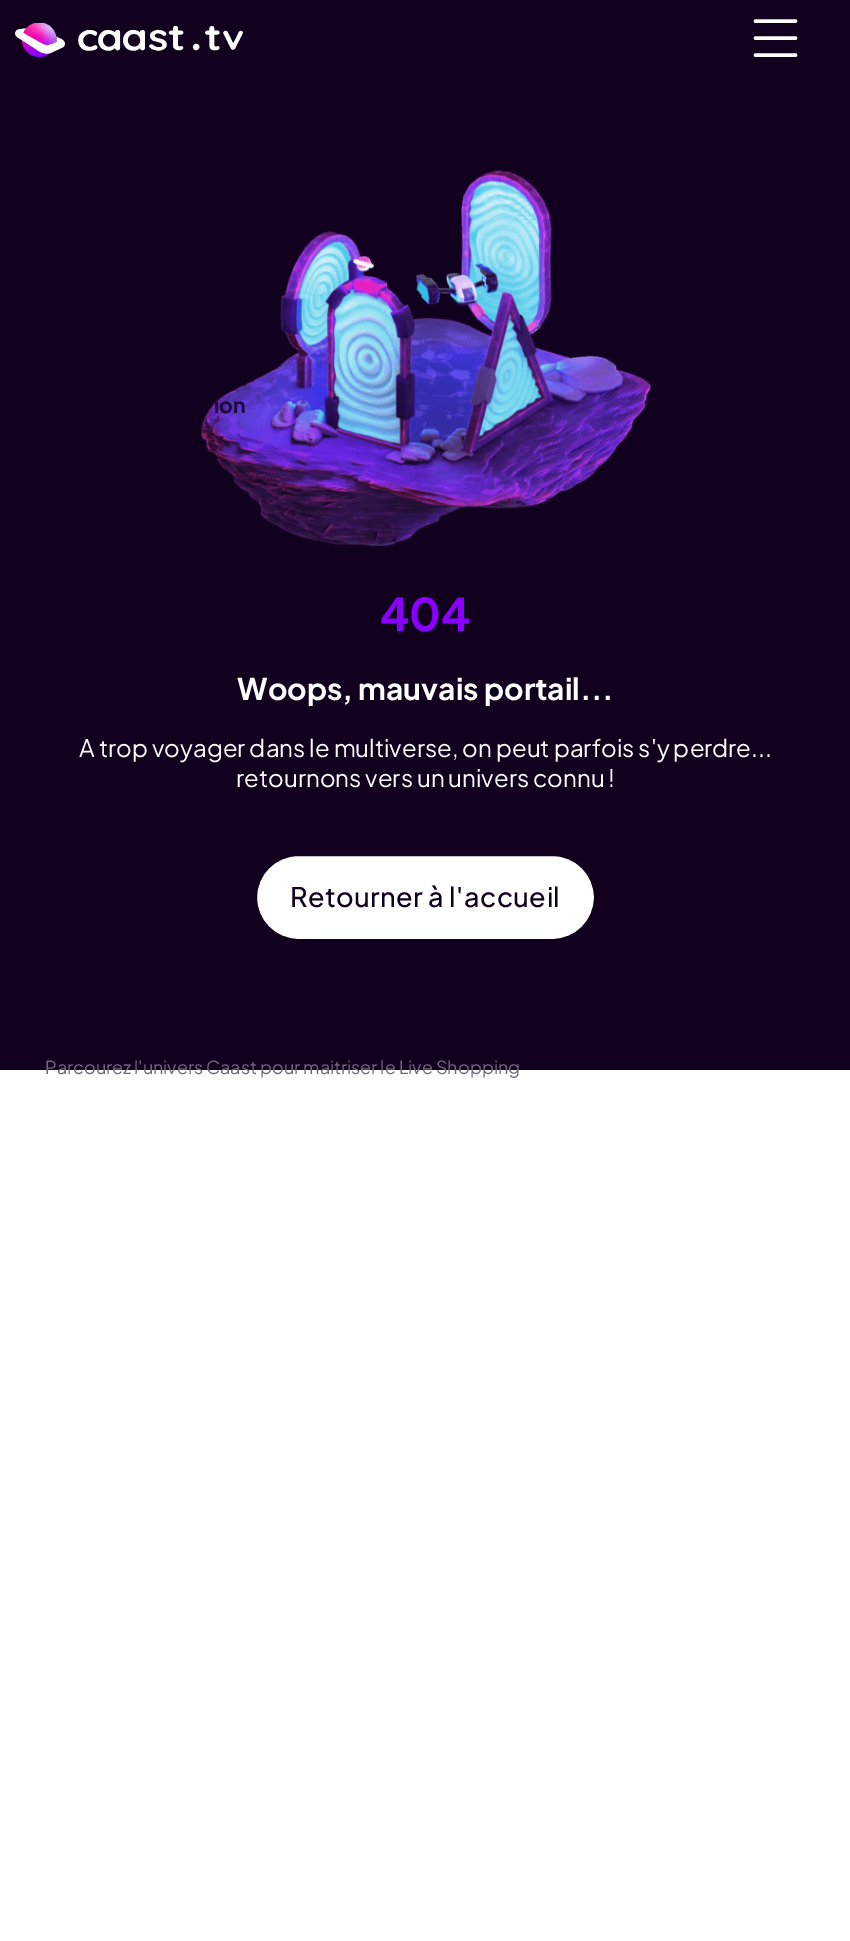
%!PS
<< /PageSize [850 1941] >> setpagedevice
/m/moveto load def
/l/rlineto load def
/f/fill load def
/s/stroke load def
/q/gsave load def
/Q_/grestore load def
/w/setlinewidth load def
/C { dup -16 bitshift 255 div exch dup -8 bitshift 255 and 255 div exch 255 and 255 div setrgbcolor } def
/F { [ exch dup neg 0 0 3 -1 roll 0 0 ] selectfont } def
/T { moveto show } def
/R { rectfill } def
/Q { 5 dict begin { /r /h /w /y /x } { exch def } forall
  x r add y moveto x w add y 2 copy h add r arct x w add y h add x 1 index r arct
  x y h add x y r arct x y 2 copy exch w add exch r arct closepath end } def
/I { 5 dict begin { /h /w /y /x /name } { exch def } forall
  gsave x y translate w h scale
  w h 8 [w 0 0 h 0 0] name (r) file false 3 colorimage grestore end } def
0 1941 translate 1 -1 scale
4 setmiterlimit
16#FFFFFF C
0 0 850 1941 R
16#12001F C
0 0 850 1070 R
(1.rgb) 15 23 228 34 I
16#FFFFFF C
3.5 w
1 setlinecap
755.5 21 m 40 0 l 755.5 38 m 40 0 l 795.5 55 m -40 0 l s
(2.rgb) 201 169 450 377 I
/PlusJakartaSans-Bold 21 F
16#1D0735 C
(ion) 214 413 T
/PlusJakartaSans-Regular 18 F
16#726779 C
(Parcourez l'univers Caast pour maitriser le Live Shopping) 45 1074 T
/PlusJakartaSans-Bold 45 F
16#8900FF C
(404) 380 631 T
/PlusJakartaSans-Bold 30 F
16#FFFFFF C
(Woops, mauvais portail...) 237 700 T
/PlusJakartaSans-Regular 24 F
(A trop voyager dans le multiverse, on peut parfois s'y perdre...) 79 757 T
(retournons vers un univers connu !) 236 787 T
256 855 339 85 42.5 Q q f Q_
16#12001F C
2 w
0 setlinecap
s
/PlusJakartaSans-Medium 27 F
290 907 m .45 0 (Retourner à l'accueil) ashow
showpage
